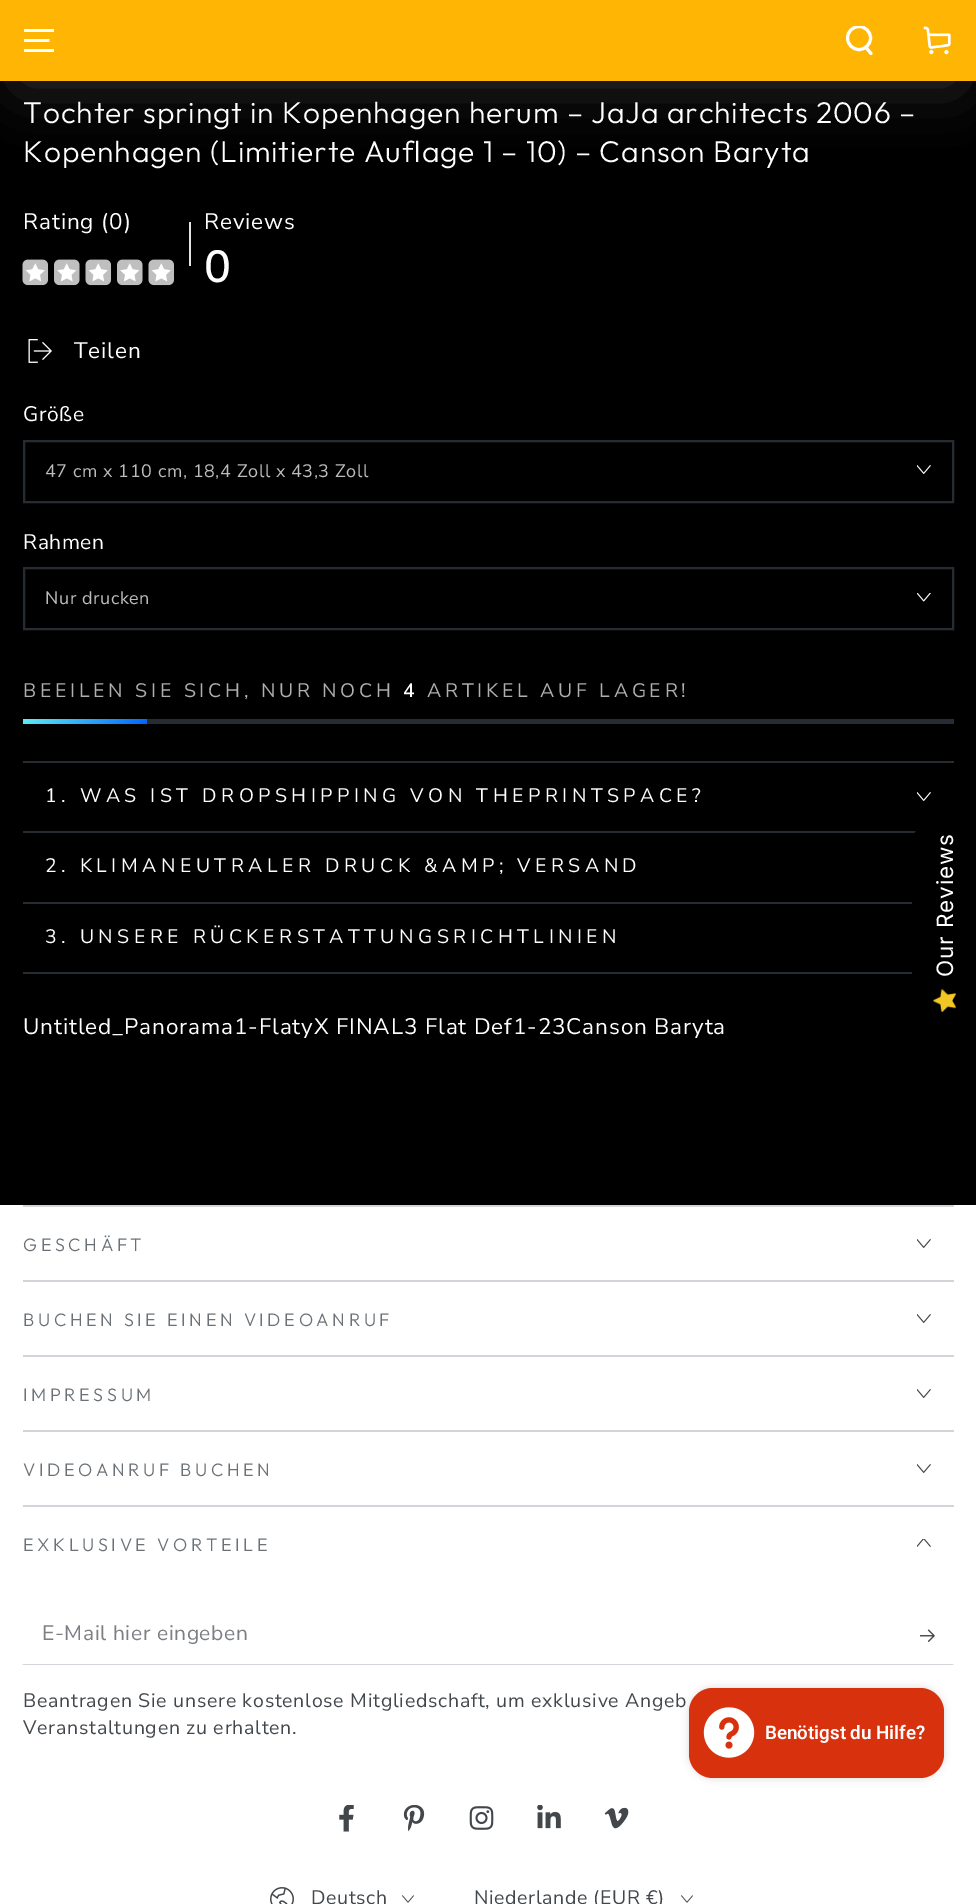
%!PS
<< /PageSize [976 1904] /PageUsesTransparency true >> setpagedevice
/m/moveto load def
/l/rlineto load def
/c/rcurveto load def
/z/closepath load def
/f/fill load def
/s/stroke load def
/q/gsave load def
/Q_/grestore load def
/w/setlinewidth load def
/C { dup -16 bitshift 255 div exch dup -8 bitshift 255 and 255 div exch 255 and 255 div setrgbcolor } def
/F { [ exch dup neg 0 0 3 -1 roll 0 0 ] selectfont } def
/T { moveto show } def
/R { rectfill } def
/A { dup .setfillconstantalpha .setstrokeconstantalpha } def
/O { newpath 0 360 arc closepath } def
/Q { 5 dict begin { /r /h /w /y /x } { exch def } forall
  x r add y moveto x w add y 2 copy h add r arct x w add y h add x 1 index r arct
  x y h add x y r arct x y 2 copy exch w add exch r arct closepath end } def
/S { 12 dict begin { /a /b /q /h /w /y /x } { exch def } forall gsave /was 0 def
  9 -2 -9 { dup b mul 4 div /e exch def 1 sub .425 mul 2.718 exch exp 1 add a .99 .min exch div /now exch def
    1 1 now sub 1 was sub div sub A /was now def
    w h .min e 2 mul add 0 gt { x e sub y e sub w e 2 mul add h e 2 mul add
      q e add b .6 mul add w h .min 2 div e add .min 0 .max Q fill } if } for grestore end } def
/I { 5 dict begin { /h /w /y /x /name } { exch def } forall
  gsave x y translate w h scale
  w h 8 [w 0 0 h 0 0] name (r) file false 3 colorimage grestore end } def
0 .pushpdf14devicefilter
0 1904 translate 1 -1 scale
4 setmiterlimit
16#000000 C
0 0 976 1904 R
16#FAFAFA C
23 51 931 30 15 30 .2 S
16#FFB503 C
0 0 976 81 R
16#FFFFFF C
2.8 w
24 50.5 m 30 0 l 24 40.5 m 25.5 0 l 24 30.5 m 30 0 l s
q
845 26 30 30 rectclip
3 w
859 38 11.5 O s
Q_
3 w
1 setlinecap
866 47.5 m 5 6 l s
(1.rgb) 923 26 28 29 I
/Outfit-Light 30 F
23 123 m .9 0 (Tochter springt in Kopenhagen herum – JaJa architects 2006 –) ashow
23 162 m .9 0 (Kopenhagen \(Limitierte Auflage 1 – 10\) – Canson Baryta) ashow
/NunitoSans-Regular 22.5 F
23 229 m .9 0 (Rating \(0\)) ashow
(2.rgb) 22 259 27 27 I
(3.rgb) 25 263 20 19 I
(4.rgb) 54 259 26 27 I
(5.rgb) 57 263 20 19 I
(2.rgb) 85 259 27 27 I
(3.rgb) 88 263 20 19 I
(4.rgb) 117 259 26 27 I
(5.rgb) 120 263 20 19 I
(2.rgb) 148 259 27 27 I
(3.rgb) 151 263 20 19 I
16#E3E3E3 C
189 222 2 44 R
16#FFFFFF C
204 229 m .9 0 (Reviews) ashow
/NunitoSans-SemiBold 45 F
204 282 m .9 0 (0) ashow
(6.rgb) 28 339 24 24 I
/NunitoSans-Regular 22.5 F
74 358 m .9 0 (Teilen) ashow
/NunitoSans-Regular 21 F
23 421 m .6 0 (Größe) ashow
16#272C32 C
2 w
0 setlinecap
24 441 929 61 rectstroke
/NunitoSans-Regular 18 F
16#BCBCBC C
45 477 m .6 0 (47 cm x 110 cm, 18,4 Zoll x 43,3 Zoll) ashow
(7.rgb) 917 465 14 9 I
/NunitoSans-Regular 21 F
16#FFFFFF C
23 549 m .6 0 (Rahmen) ashow
16#272C32 C
24 568 929 61 rectstroke
/NunitoSans-Regular 18 F
16#BCBCBC C
45 604 m .6 0 (Nur drucken) ashow
(8.rgb) 917 593 14 9 I
/NunitoSans-Regular 19.5 F
16#AFAFAF C
23 697 m 3.75 0 (BEEILEN SIE SICH, NUR NOCH) ashow
/NunitoSans-SemiBold 19.5 F
16#FFFFFF C
403 697 m 3.75 0 (4) ashow
/NunitoSans-Regular 19.5 F
16#AFAFAF C
427 697 m 3.75 0 (ARTIKEL AUF LAGER!) ashow
16#272C32 C
147 719 807 5 R
q 23 719 m 124 0 l 0 5 l -124 0 l z clip newpath
<< /ShadingType 2 /ColorSpace /DeviceRGB /Coords [106 752 63 690] /Extend [true true] /Function << /FunctionType 2 /Domain [0 1] /C0 [0 .392 1] /C1 [.38 .941 .953] /N 1 >> >> shfill Q_
23 761 931 2 R
23 831 893 2 R
16#FFFFFF C
45 802 m 4.5 0 (1. WAS IST DROPSHIPPING VON THEPRINTSPACE?) ashow
(7.rgb) 917 792 14 9 I
16#272C32 C
23 902 889 2 R
16#FFFFFF C
45 872 m 4.5 0 (2. KLIMANEUTRALER DRUCK &AMP; VERSAND) ashow
16#272C32 C
23 972 889 2 R
16#FFFFFF C
45 943 m 4.5 0 (3. UNSERE RÜCKERSTATTUNGSRICHTLINIEN) ashow
/NunitoSans-Regular 22.5 F
23 1034 m .9 0 (Untitled_Panorama1-FlatyX FINAL3 Flat Def1-23Canson Baryta) ashow
0 1205 976 699 R
16#D2D5D9 C
23 1205 931 2 R
23 1280 931 2 R
/Outfit-Light 18 F
16#6B7177 C
23 1251 m 3.6 0 (GESCHÄFT) ashow
(9.rgb) 917 1239 14 9 I
16#D2D5D9 C
23 1355 931 2 R
16#6B7177 C
23 1326 m 3.6 0 (BUCHEN SIE EINEN VIDEOANRUF) ashow
(9.rgb) 917 1314 14 9 I
16#D2D5D9 C
23 1430 931 2 R
16#6B7177 C
23 1401 m 3.6 0 (IMPRESSUM) ashow
(9.rgb) 917 1389 14 9 I
16#D2D5D9 C
23 1505 931 2 R
16#6B7177 C
23 1476 m 3.6 0 (VIDEOANRUF BUCHEN) ashow
(9.rgb) 917 1464 14 9 I
23 1551 m 3.6 0 (EXKLUSIVE VORTEILE) ashow
(10.rgb) 917 1539 14 8 I
16#D2D5D9 C
954 1665 m -932 0 l 2 -1 l 928 0 l z f
/NunitoSans-Regular 21 F
16#7B7E82 C
42 1640 m .6 0 (E-Mail hier eingeben) ashow
(11.rgb) 920 1629 15 13 I
/NunitoSans-Regular 19.5 F
16#42474C C
23 1707 m .75 0 (Beantragen Sie unsere kostenlose Mitgliedschaft, um exklusive Angeb) ashow
23 1734 m .75 0 (Veranstaltungen zu erhalten.) ashow
(12.rgb) 339 1805 15 27 I
(13.rgb) 403 1805 22 27 I
(14.rgb) 469 1806 25 24 I
(15.rgb) 537 1805 24 24 I
(16.rgb) 604 1807 25 22 I
(17.rgb) 270 1887 24 17 I
311 1904 m .6 0 (Deutsch) ashow
(18.rgb) 402 1895 12 8 I
474 1904 m .6 0 (Niederlande \(EUR €\)) ashow
(18.rgb) 681 1895 12 8 I
16#000000 C
912 999 m 0 -155 l 0 -13 11 -24 24 -24 c 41 0 l 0 203 l -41 0 l -13 0 -24 -11 -24 -24 c z f
/Inter-Regular 22.5 F
16#FFFFFF C
q 953 977 translate -90 rotate 0 0 m .9 0 (Our Reviews) ashow Q_
(19.rgb) 933 989 23 23 I
16#000000 C
689 1688 255 90 24 4 .15 S
16#D7310D C
689 1688 255 90 24 Q f
(20.rgb) 703 1707 52 51 I
/Roboto-SemiBold 18.75 F
16#FFFFFF C
(Benötigst du Hilfe?) 765 1739 T
.poppdf14devicefilter showpage
